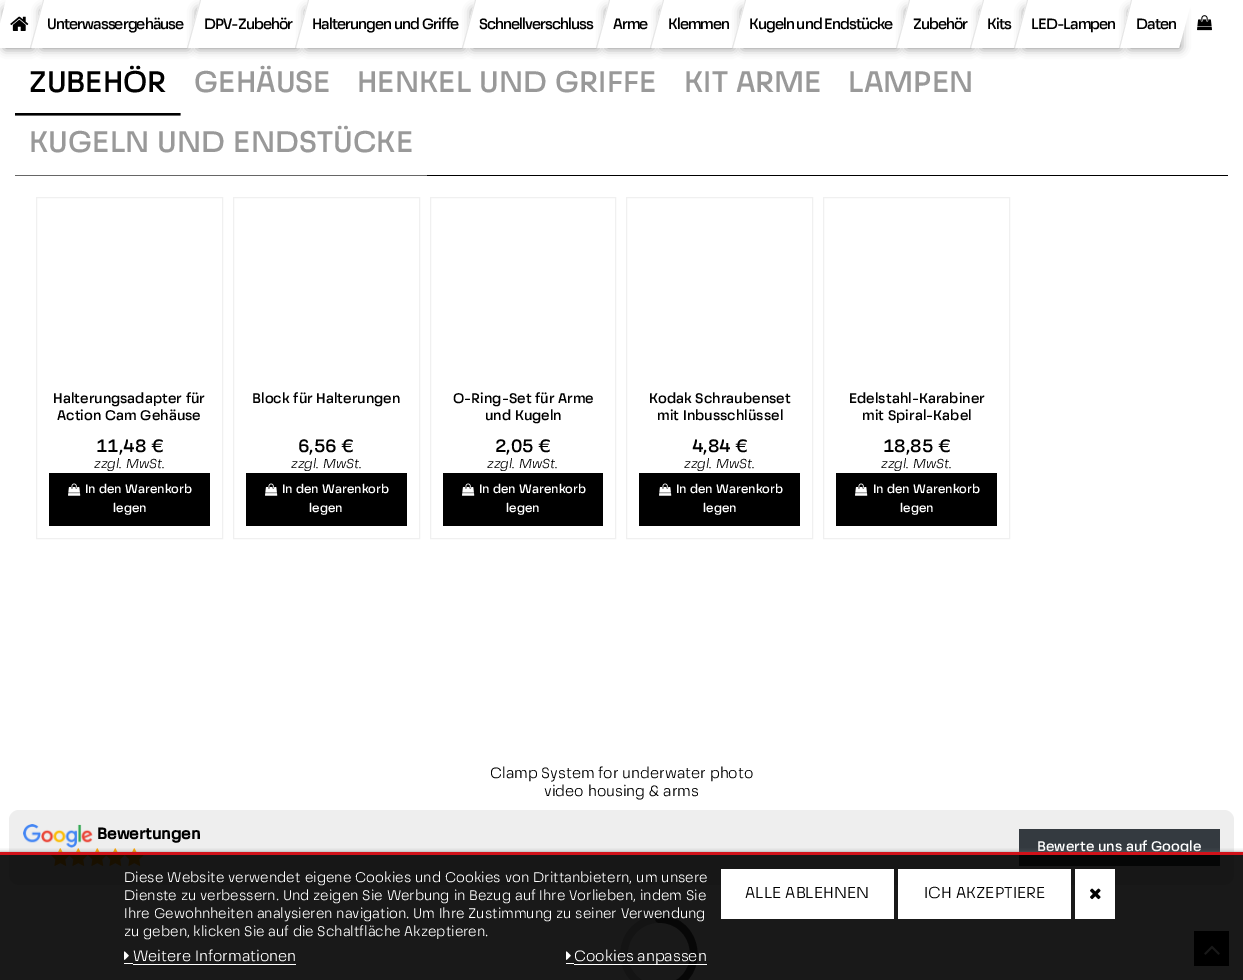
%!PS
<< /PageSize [1243 980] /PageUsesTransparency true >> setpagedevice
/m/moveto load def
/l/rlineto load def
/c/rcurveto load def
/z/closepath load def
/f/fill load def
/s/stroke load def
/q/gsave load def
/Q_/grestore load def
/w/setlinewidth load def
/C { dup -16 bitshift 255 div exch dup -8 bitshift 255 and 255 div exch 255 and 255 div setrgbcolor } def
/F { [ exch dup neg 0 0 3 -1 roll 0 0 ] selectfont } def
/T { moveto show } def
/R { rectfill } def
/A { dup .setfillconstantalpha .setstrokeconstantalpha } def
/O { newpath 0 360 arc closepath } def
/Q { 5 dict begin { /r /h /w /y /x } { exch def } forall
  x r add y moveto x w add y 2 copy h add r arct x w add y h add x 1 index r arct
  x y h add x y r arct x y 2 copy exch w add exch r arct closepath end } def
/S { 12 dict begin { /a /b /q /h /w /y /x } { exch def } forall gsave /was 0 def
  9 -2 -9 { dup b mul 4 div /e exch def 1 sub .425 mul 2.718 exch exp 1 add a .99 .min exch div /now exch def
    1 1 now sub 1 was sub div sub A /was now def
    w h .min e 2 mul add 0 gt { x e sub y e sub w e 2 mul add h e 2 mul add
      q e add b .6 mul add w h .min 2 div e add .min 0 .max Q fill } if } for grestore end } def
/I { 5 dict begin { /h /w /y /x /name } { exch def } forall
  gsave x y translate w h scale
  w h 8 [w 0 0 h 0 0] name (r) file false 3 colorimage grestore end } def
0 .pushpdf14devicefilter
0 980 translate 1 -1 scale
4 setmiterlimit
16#FFFFFF C
0 0 1243 980 R
16#000000 C
5 10 27 38 0 5 .5 S
16#FFFFFF C
6 0 m 37 0 l -13 48 l -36 0 l z f
(1.rgb) 10 16 19 15 I
16#000000 C
42 10 146 38 0 5 .5 S
16#FFFFFF C
43 0 m 157 0 l -13 48 l -157 0 l z f
16#E6E6E6 C
43 0 m 1 0 l -13 48 l -1 0 l z f
/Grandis-Medium 15 F
16#000000 C
47 29 m -1 0 (Unterwassergehäuse) ashow
198 10 99 38 0 5 .5 S
16#FFFFFF C
200 0 m 108 0 l -13 48 l -108 0 l z f
16#E6E6E6 C
200 0 m 1 0 l -13 48 l -1 0 l z f
16#000000 C
204 29 m -1 0 (DPV-Zubehör) ashow
307 10 156 38 0 5 .5 S
16#FFFFFF C
308 0 m 167 0 l -13 48 l -167 0 l z f
16#E6E6E6 C
308 0 m 1 0 l -13 48 l -1 0 l z f
16#000000 C
312 29 m -1 0 (Halterungen und Griffe) ashow
473 10 124 38 0 5 .5 S
16#FFFFFF C
475 0 m 134 0 l -13 48 l -134 0 l z f
16#E6E6E6 C
475 0 m 1 0 l -13 48 l -1 0 l z f
16#000000 C
479 29 m -1 0 (Schnellverschluss) ashow
607 10 45 38 0 5 .5 S
16#FFFFFF C
609 0 m 54 0 l -13 48 l -54 0 l z f
16#E6E6E6 C
609 0 m 1 0 l -13 48 l -1 0 l z f
16#000000 C
613 29 m -1 0 (Arme) ashow
662 10 71 38 0 5 .5 S
16#FFFFFF C
663 0 m 82 0 l -13 48 l -82 0 l z f
16#E6E6E6 C
663 0 m 1 0 l -13 48 l -1 0 l z f
16#000000 C
668 29 m -1 0 (Klemmen) ashow
743 10 154 38 0 5 .5 S
16#FFFFFF C
745 0 m 164 0 l -13 48 l -164 0 l z f
16#E6E6E6 C
745 0 m 1 0 l -13 48 l -1 0 l z f
16#000000 C
749 29 m -1 0 (Kugeln und Endstücke) ashow
907 10 65 38 0 5 .5 S
16#FFFFFF C
909 0 m 74 0 l -13 48 l -74 0 l z f
16#E6E6E6 C
909 0 m 1 0 l -13 48 l -1 0 l z f
16#000000 C
913 29 m -1 0 (Zubehör) ashow
982 10 33 38 0 5 .5 S
16#FFFFFF C
983 0 m 44 0 l -13 48 l -44 0 l z f
16#E6E6E6 C
983 0 m 1 0 l -13 48 l -1 0 l z f
16#000000 C
987 29 m -1 0 (Kits) ashow
1025 10 95 38 0 5 .5 S
16#FFFFFF C
1027 0 m 104 0 l -12 48 l -105 0 l z f
16#E6E6E6 C
1027 0 m 1 0 l -13 48 l -1 0 l z f
16#000000 C
1031 29 m -1 0 (LED-Lampen) ashow
1130 10 50 38 0 5 .5 S
16#FFFFFF C
1131 0 m 61 0 l -13 48 l -60 0 l z f
16#E6E6E6 C
1131 0 m 1 0 l -12 48 l -1 0 l z f
16#000000 C
1136 29 m -1 0 (Daten) ashow
(2.rgb) 1197 15 15 16 I
427 175 801 1 R
16#666666 C
15 175 412 1 R
16#000000 C
15 113 166 2 R
16#666666 C
15 115 166 1 R
180 113 1 3 R
16#A3A3A3 C
180 115 1 1 R
/Grandis-Medium 30 F
16#000000 C
(ZUBEHÖR) 29 92 T
16#999999 C
(GEHÄUSE) 194 92 T
(HENKEL UND GRIFFE) 357 92 T
(KIT ARME) 684 92 T
(LAMPEN) 848 92 T
(KUGELN UND ENDSTÜCKE) 29 152 T
16#F0F0F0 C
36.5 197.5 186 341 rectstroke
/Grandis-Medium 14 F
16#000000 C
(Halterungsadapter für) 53 403 T
(Action Cam Gehäuse) 57 420 T
/Grandis-Medium 18 F
(11,48 €) 96 452 T
/Grandis-LightItalic 13 F
(zzgl. MwSt.) 94 468 T
49 473 161 53 R
(3.rgb) 68 483 13 13 I
/Grandis-Medium 12.25 F
16#FFFFFF C
(In den Warenkorb) 85 493 T
(legen) 113 512 T
16#F0F0F0 C
233.5 197.5 186 341 rectstroke
/Grandis-Medium 14 F
16#000000 C
(Block für Halterungen) 252 403 T
/Grandis-Medium 18 F
(6,56 €) 298 452 T
/Grandis-LightItalic 13 F
(zzgl. MwSt.) 291 468 T
246 473 161 53 R
(3.rgb) 265 483 13 13 I
/Grandis-Medium 12.25 F
16#FFFFFF C
(In den Warenkorb) 282 493 T
(legen) 309 512 T
16#F0F0F0 C
430.5 197.5 185 341 rectstroke
/Grandis-Medium 14 F
16#000000 C
(O-Ring-Set für Arme) 453 403 T
(und Kugeln) 485 420 T
/Grandis-Medium 18 F
(2,05 €) 495 452 T
/Grandis-LightItalic 13 F
(zzgl. MwSt.) 487 468 T
443 473 160 53 R
(3.rgb) 462 483 13 13 I
/Grandis-Medium 12.25 F
16#FFFFFF C
(In den Warenkorb) 479 493 T
(legen) 506 512 T
16#F0F0F0 C
626.5 197.5 186 341 rectstroke
/Grandis-Medium 14 F
16#000000 C
(Kodak Schraubenset) 649 403 T
(mit Inbusschlüssel) 657 420 T
/Grandis-Medium 18 F
(4,84 €) 692 452 T
/Grandis-LightItalic 13 F
(zzgl. MwSt.) 684 468 T
639 473 161 53 R
(3.rgb) 659 483 13 13 I
/Grandis-Medium 12.25 F
16#FFFFFF C
(In den Warenkorb) 676 493 T
(legen) 703 512 T
16#F0F0F0 C
823.5 197.5 186 341 rectstroke
/Grandis-Medium 14 F
16#000000 C
(Edelstahl-Karabiner) 849 403 T
(mit Spiral-Kabel) 862 420 T
/Grandis-Medium 18 F
(18,85 €) 883 452 T
/Grandis-LightItalic 13 F
(zzgl. MwSt.) 881 468 T
836 473 161 53 R
(3.rgb) 855 483 13 13 I
/Grandis-Medium 12.25 F
16#FFFFFF C
(In den Warenkorb) 873 493 T
(legen) 900 512 T
/Grandis-Light 15 F
16#000000 C
(Clamp System for underwater photo) 490 778 T
(video housing & arms) 544 796 T
16#EEEEEE C
9 810 1225 75 10 Q f
(4.rgb) 23 824 70 24 I
/Grandis-Bold 15.75 F
16#000000 C
(Bewertungen) 97 839 T
(5.rgb) 51 848 19 18 I
(6.rgb) 69 848 19 18 I
(5.rgb) 88 848 19 18 I
(6.rgb) 106 848 19 18 I
(5.rgb) 125 848 19 18 I
16#343A40 C
1019 829 201 37 R
/Grandis-Medium 14 F
16#FFFFFF C
(Bewerte uns auf Google) 1037 851 T
16#5F5F5F C
7.5 w
1 setlinecap
659 919 m 40.5 0 48 57.5 10 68.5 c s
0.2 A
16#000000 C
0 setlinecap
659 954 35 O s
1 A
1194 931 35 35 R
(9.rgb) 1204 945 16 10 I
q
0 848 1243 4 rectclip
16#707070 C
0 853 1243 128 0 2.5 1 S
Q_
0.9 A
0 855 1243 125 R
1 A
16#D0121A C
0 852 1243 3 R
/Grandis-Light 14 F
16#FFFFFF C
124 882 m .5 0 32 (Diese Website verwendet eigene Cookies und Cookies von Drittanbietern, um unsere) widthshow
124 900 m .25 0 32 (Dienste zu verbessern. Und zeigen Sie Werbung in Bezug auf Ihre Vorlieben, indem Sie) widthshow
124 918 m .25 0 32 (Ihre Gewohnheiten analysieren navigation. Um Ihre Zustimmung zu seiner Verwendung) widthshow
(zu geben, klicken Sie auf die Schaltfläche Akzeptieren.) 124 936 T
124 963 9 1 R
133 964 163 1 R
(7.rgb) 124 951 5 9 I
/Grandis-Light 15 F
(Weitere Informationen) 133 961 T
566 963 8 1 R
574 964 133 1 R
(7.rgb) 566 951 5 9 I
(Cookies anpassen) 574 961 T
721 869 173 50 R
/Grandis-Light 16 F
16#000000 C
(ALLE ABLEHNEN) 745 898 T
16#FFFFFF C
898 869 173 50 R
16#000000 C
(ICH AKZEPTIERE) 924 898 T
16#FFFFFF C
1075 869 40 50 R
(8.rgb) 1090 888 11 12 I
.poppdf14devicefilter showpage
